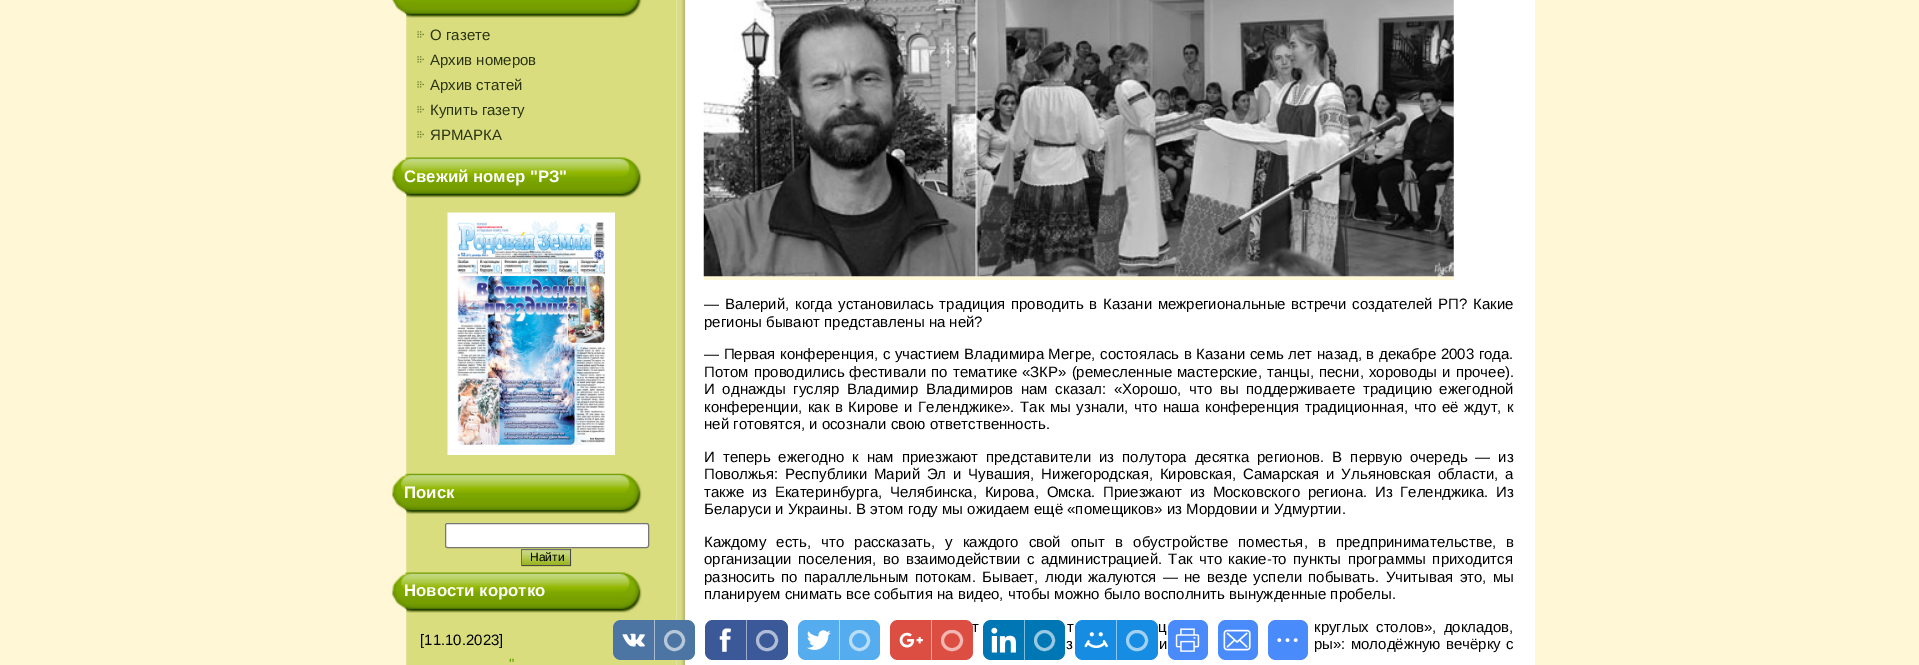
%!PS
<< /PageSize [1919 665] >> setpagedevice
/m/moveto load def
/f/fill load def
/s/stroke load def
/q/gsave load def
/Q_/grestore load def
/w/setlinewidth load def
/C { dup -16 bitshift 255 div exch dup -8 bitshift 255 and 255 div exch 255 and 255 div setrgbcolor } def
/F { [ exch dup neg 0 0 3 -1 roll 0 0 ] selectfont } def
/T { moveto show } def
/R { rectfill } def
/O { newpath 0 360 arc closepath } def
/Q { 5 dict begin { /r /h /w /y /x } { exch def } forall
  x r add y moveto x w add y 2 copy h add r arct x w add y h add x 1 index r arct
  x y h add x y r arct x y 2 copy exch w add exch r arct closepath end } def
/I { 5 dict begin { /h /w /y /x /name } { exch def } forall
  gsave x y translate w h scale
  w h 8 [w 0 0 h 0 0] name (r) file false 3 colorimage grestore end } def
0 665 translate 1 -1 scale
4 setmiterlimit
16#FFF7D5 C
0 0 1919 665 R
(1.rgb) 385 0 291 665 I
(2.rgb) 392 0 284 18 I
(3.rgb) 417 31 7 7 I
/LiberationSans-Regular 15 F
16#2B3414 C
(О газете) 430 40 T
(3.rgb) 417 56 7 7 I
(Архив номеров) 430 65 T
(3.rgb) 417 81 7 7 I
(Архив статей) 430 90 T
(3.rgb) 417 106 7 7 I
(Купить газету) 430 115 T
(3.rgb) 417 131 7 7 I
(ЯРМАРКА) 430 140 T
(4.rgb) 391 157 285 41 I
/LiberationSans-Bold 16.75 F
16#FFFFFF C
(Свежий номер "РЗ") 404 182 T
(5.rgb) 447 212 168 243 I
(6.rgb) 391 473 285 41 I
(Поиск) 404 498 T
445.5 523.5 203 24 2 Q q f Q_
16#767676 C
s
(7.rgb) 521 548 51 19 I
16#6E6E6E C
521 549 50 1 R
16#494949 C
570 549 1 17 R
521 565 50 1 R
16#6E6E6E C
521 549 1 17 R
/LiberationSans-Regular 12 F
16#000000 C
(Найти) 530 561 T
(4.rgb) 391 572 285 41 I
/LiberationSans-Bold 16.75 F
16#FFFFFF C
(Новости коротко) 404 596 T
/LiberationSans-Regular 15 F
16#000000 C
([11.10.2023]) 420 645 T
16#5C9F00 C
(") 509 669 T
16#FFFFFF C
676 0 859 665 R
(8.rgb) 676 0 10 665 I
16#FFF7D5 C
704 263 750 17 R
(9.rgb) 703 0 751 277 I
16#000000 C
704 309 m 1.5 0 32 (— Валерий, когда установилась традиция проводить в Казани межрегиональные встречи создателей РП? Какие) widthshow
(регионы бывают представлены на ней?) 704 327 T
704 359 m .4 0 32 (— Первая конференция, с участием Владимира Мегре, состоялась в Казани семь лет назад, в декабре 2003 года.) widthshow
704 377 m .9 0 32 (Потом проводились фестивали по тематике «ЗКР» \(ремесленные мастерские, танцы, песни, хороводы и прочее\).) widthshow
704 394 m 3.5 0 32 (И однажды гусляр Владимир Владимиров нам сказал: «Хорошо, что вы поддерживаете традицию ежегодной) widthshow
704 412 m 1.4 0 32 (конференции, как в Кирове и Геленджике». Так мы узнали, что наша конференция традиционная, что её ждут, к) widthshow
(ней готовятся, и осознали свою ответственность.) 704 429 T
704 462 m 3.75 0 32 (И теперь ежегодно к нам приезжают представители из полутора десятка регионов. В первую очередь — из) widthshow
704 479 m 2.6 0 32 (Поволжья: Республики Марий Эл и Чувашия, Нижегородская, Кировская, Самарская и Ульяновская области, а) widthshow
704 497 m 3.5 0 32 (также из Екатеринбурга, Челябинска, Кирова, Омска. Приезжают из Московского региона. Из Геленджика. Из) widthshow
(Беларуси и Украины. В этом году мы ожидаем ещё «помещиков» из Мордовии и Удмуртии.) 704 514 T
704 547 m 6 0 32 (Каждому есть, что рассказать, у каждого свой опыт в обустройстве поместья, в предпринимательстве, в) widthshow
704 564 m 2.25 0 32 (организации поселения, во взаимодействии с администрацией. Так что какие-то пункты программы приходится) widthshow
704 582 m 2.1 0 32 (разносить по параллельным потокам. Бывает, люди жалуются — не везде успели побывать. Учитывая это, мы) widthshow
(планируем снимать все события на видео, чтобы можно было восполнить вынужденные пробелы.) 704 599 T
972 632 m 3 0 32 (т) widthshow
1067 632 m 3 0 32 (т) widthshow
1158 632 m 3 0 32 (ц) widthshow
1314 632 m 3 0 32 (круглых столов», докладов,) widthshow
1066 649 m 1 0 32 (з) widthshow
1159 649 m 1 0 32 (и) widthshow
1314 649 m 1 0 32 (ры»: молодёжную вечёрку с) widthshow
16#4D75A3 C
613 620 82 40 8 Q f
(10.rgb) 622 633 23 14 I
16#A6BAD1 C
654 620 1 40 R
16#B8C8DA C
3 w
674.5 640.5 9 O s
16#3B5998 C
705 620 83 40 8 Q f
(11.rgb) 719 628 12 24 I
16#9DACCC C
746 620 1 40 R
16#B1BDD6 C
757.5 631.5 19 18 9 Q s
16#55ACEE C
798 620 82 40 8 Q f
(12.rgb) 807 630 24 20 I
16#AAD6F7 C
839 620 1 40 R
16#BBDEF8 C
859.5 640.5 9 O s
16#DC4E41 C
890 620 83 40 8 Q f
(13.rgb) 899 632 24 16 I
16#EEA7A0 C
931 620 1 40 R
16#F1B8B3 C
942.5 631.5 19 18 9 Q s
16#0077B5 C
983 620 82 40 8 Q f
(14.rgb) 991 627 25 26 I
16#80BBDA C
1024 620 1 40 R
16#99C9E1 C
1044.5 640.5 9 O s
16#168DE2 C
1075 620 83 40 8 Q f
(15.rgb) 1084 632 24 17 I
16#8BC6F1 C
1116 620 1 40 R
16#A2D1F3 C
1127.5 631.5 19 18 9 Q s
16#498BFA C
1168 620 40 40 8 Q f
(16.rgb) 1175 628 25 24 I
1218 620 40 40 8 Q f
(17.rgb) 1223 629 28 22 I
1268 620 40 40 8 Q f
(18.rgb) 1277 638 21 5 I
showpage
